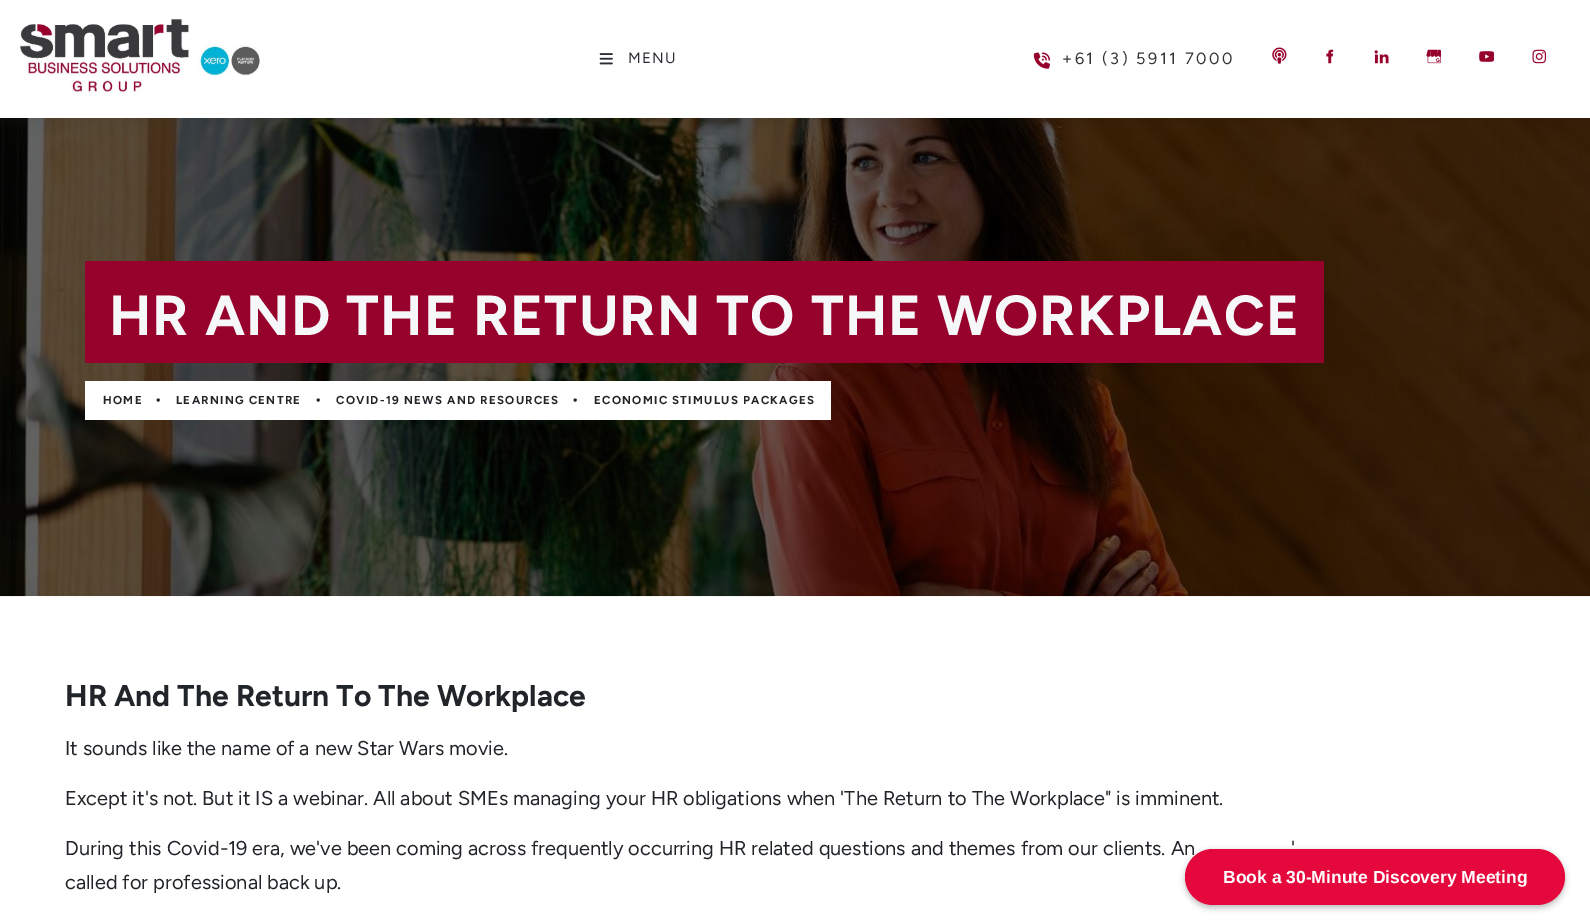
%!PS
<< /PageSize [1590 923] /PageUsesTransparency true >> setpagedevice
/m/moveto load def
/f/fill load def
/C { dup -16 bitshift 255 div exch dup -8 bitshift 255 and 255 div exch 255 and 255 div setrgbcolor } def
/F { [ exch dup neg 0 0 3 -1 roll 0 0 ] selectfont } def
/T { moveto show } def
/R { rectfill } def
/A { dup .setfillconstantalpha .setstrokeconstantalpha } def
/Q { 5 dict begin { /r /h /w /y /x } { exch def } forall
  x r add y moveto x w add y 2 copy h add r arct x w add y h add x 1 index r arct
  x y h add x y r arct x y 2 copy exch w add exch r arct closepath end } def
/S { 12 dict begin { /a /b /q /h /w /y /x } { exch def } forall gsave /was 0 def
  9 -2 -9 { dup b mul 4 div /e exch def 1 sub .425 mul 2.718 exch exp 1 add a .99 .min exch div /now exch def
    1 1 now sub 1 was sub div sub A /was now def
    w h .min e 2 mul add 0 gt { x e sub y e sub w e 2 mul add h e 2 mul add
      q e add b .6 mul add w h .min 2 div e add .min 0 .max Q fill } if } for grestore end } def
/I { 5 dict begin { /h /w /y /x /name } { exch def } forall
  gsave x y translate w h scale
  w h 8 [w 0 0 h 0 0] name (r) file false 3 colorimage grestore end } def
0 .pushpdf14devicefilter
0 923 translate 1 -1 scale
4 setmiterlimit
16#FFFFFF C
0 0 1590 923 R
(10.rgb) 0 118 1590 479 I
16#212529 C
0 3 1590 117 0 12.5 .13 S
16#FFFFFF C
0 0 1590 118 R
(1.rgb) 20 18 240 78 I
(2.rgb) 599 53 14 12 I
/Figtree-Regular 15 F
16#2A2D35 C
628 63 m 1.25 0 (MENU) ashow
(3.rgb) 1033 52 17 17 I
/Figtree-Regular 16.25 F
16#333333 C
1062 64 m 2.5 0 (+61 \(3\) 5911 7000) ashow
(4.rgb) 1272 47 15 17 I
(5.rgb) 1326 49 8 15 I
(6.rgb) 1374 50 15 14 I
(7.rgb) 1426 49 15 15 I
(8.rgb) 1479 51 15 11 I
(9.rgb) 1532 49 14 15 I
16#97022C C
85 261 1239 102 R
/Figtree-Bold 56.25 F
16#F6F7F9 C
109 335 m 1.25 0 (HR AND THE RETURN TO THE WORKPLACE) ashow
16#FFFFFF C
85 381 746 39 R
/Figtree-Bold 11.6 F
16#212529 C
103 404 m 1.25 0 (HOME) ashow
/Figtree-Bold 14 F
155 404 m 1.25 0 (•) ashow
/Figtree-Bold 11.6 F
176 404 m 1.25 0 (LEARNING CENTRE) ashow
/Figtree-Bold 14 F
315 404 m 1.25 0 (•) ashow
/Figtree-Bold 11.6 F
336 404 m 1.25 0 (COVID-19 NEWS AND RESOURCES) ashow
/Figtree-Bold 14 F
572 404 m 1.25 0 (•) ashow
/Figtree-Bold 11.6 F
594 404 m 1.25 0 (ECONOMIC STIMULUS PACKAGES) ashow
/Figtree-Bold 30 F
(HR And The Return To The Workplace) 65 706 T
/Figtree-Regular 20 F
(It sounds like the name of a new Star Wars movie.) 65 755 T
(Except it's not. But it IS a webinar. All about SMEs managing your HR obligations when 'The Return to The Workplace" is imminent.) 65 805 T
(During this Covid-19 era, we've been coming across frequently occurring HR related questions and themes from our clients. An) 65 855 T
(') 1291 855 T
(called for professional back up.) 65 889 T
16#000000 C
1185 851 380 57 28.5 3 .25 S
16#E4083C C
1185 849 380 56 28 Q f
/LiberationSans-Bold 17.5 F
16#FFFFFF C
(Book a 30-Minute Discovery Meeting) 1223 883 T
.poppdf14devicefilter showpage
